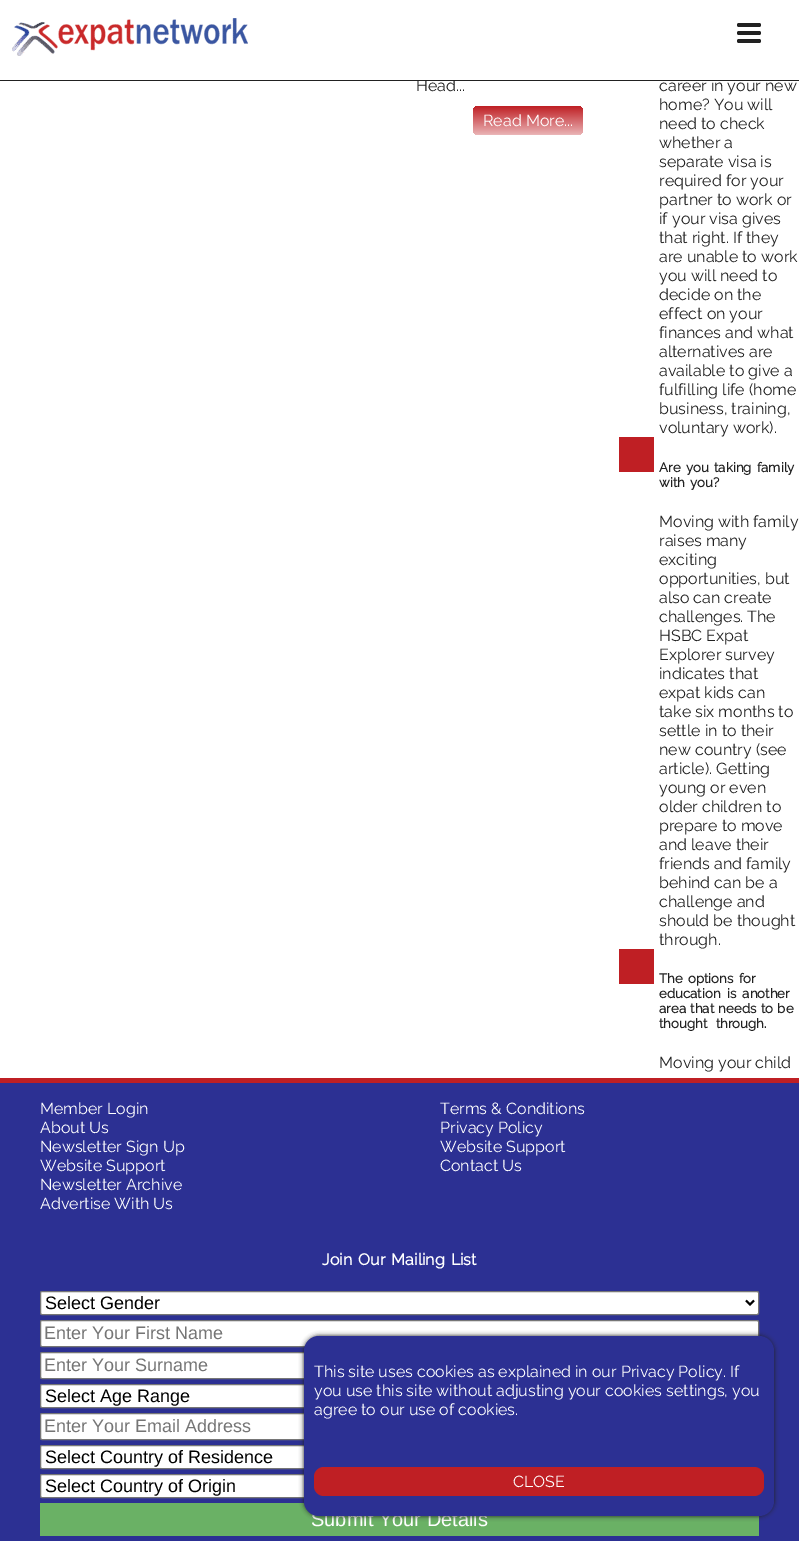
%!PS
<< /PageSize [799 1541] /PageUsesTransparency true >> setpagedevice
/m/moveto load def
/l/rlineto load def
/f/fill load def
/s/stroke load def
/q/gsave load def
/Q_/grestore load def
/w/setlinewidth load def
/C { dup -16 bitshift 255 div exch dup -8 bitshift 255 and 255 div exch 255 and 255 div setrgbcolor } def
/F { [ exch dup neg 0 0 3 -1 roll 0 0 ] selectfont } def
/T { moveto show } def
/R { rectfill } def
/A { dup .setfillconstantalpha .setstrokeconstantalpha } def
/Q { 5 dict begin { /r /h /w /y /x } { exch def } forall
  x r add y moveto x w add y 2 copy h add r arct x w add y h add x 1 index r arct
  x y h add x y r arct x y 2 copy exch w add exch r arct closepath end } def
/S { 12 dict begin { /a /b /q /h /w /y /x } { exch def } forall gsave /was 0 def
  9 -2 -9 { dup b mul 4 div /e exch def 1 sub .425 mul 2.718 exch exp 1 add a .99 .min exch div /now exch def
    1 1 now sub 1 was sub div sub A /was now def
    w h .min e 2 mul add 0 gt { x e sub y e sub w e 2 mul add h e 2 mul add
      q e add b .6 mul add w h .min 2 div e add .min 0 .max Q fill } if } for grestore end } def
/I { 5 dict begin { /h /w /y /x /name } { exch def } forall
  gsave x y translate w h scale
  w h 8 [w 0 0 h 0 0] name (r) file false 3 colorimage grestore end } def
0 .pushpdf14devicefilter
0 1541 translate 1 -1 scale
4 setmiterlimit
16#FFFFFF C
0 0 799 1541 R
/Raleway-Regular 16 F
16#212121 C
(Head...) 416 91 T
(career in your new) 659 91 T
16#FFFFFF C
417 79 297 1 R
16#212121 C
0 80 799 1 R
(1.rgb) 12 18 236 38 I
737 31 24 4 2 Q f
737 23 24 4 2 Q f
737 39 24 4 2 Q f
q 473 106 110 29 5 Q clip newpath
<< /ShadingType 2 /ColorSpace /DeviceRGB /Coords [528 106 528 135] /Extend [true true] /Function << /FunctionType 2 /Domain [0 1] /C0 [.749 .122 .141] /C1 [.918 .706 .714] /N 1 >> >> shfill Q_
16#FFFFFF C
(Read More...) 483 126 T
16#212121 C
(home? You will) 659 110 T
(need to check) 659 129 T
(whether a) 659 148 T
(separate visa is) 659 167 T
(required for your) 659 186 T
(partner to work or) 659 205 T
(if your visa gives) 659 224 T
(that right. If they) 659 243 T
(are unable to work) 659 262 T
(you will need to) 659 281 T
(decide on the) 659 300 T
(effect on your) 659 319 T
(finances and what) 659 338 T
(alternatives are) 659 357 T
(available to give a) 659 376 T
(fulfilling life \(home) 659 395 T
(business, training,) 659 414 T
(voluntary work\).) 659 433 T
16#BF1F24 C
619 437 35 35 R
/Raleway-Bold 13.25 F
16#212121 C
659 472 m 2 0 32 (Are you taking family) widthshow
659 487 m 2 0 32 (with you?) widthshow
/Raleway-Regular 16 F
(Moving with family) 659 527 T
(raises many) 659 546 T
(exciting) 659 565 T
(opportunities, but) 659 584 T
(also can create) 659 603 T
(challenges. The) 659 622 T
(HSBC Expat) 659 641 T
(Explorer survey) 659 660 T
(indicates that) 659 679 T
(expat kids can) 659 698 T
(take six months to) 659 717 T
(settle in to their) 659 736 T
(new country \(see) 659 755 T
(article\). Getting) 659 774 T
(young or even) 659 793 T
(older children to) 659 812 T
(prepare to move) 659 831 T
(and leave their) 659 850 T
(friends and family) 659 869 T
(behind can be a) 659 888 T
(challenge and) 659 907 T
(should be thought) 659 926 T
(through.) 659 945 T
16#BF1F24 C
619 949 35 35 R
/Raleway-Bold 13.25 F
16#212121 C
659 983 m 2 0 32 (The options for) widthshow
659 998 m 3 0 32 (education is another) widthshow
659 1013 m 1 0 32 (area that needs to be) widthshow
659 1028 m 5 0 32 (thought through.) widthshow
/Raleway-Regular 16 F
(Moving your child) 659 1068 T
16#2C3093 C
0 1083 799 458 R
16#BF1F24 C
0 1078 799 5 R
16#FFFFFF C
(Member Login) 40 1114 T
(About Us) 40 1133 T
(Newsletter Sign Up) 40 1152 T
(Website Support) 40 1171 T
(Newsletter Archive) 40 1190 T
(Advertise With Us) 40 1209 T
(Terms & Conditions) 440 1114 T
(Privacy Policy) 440 1133 T
(Website Support) 440 1152 T
(Contact Us) 440 1171 T
/Raleway-Bold 16 F
322 1265 m 2 0 32 (Join Our Mailing List) widthshow
40.5 1291.5 718 23 1.5 Q q f Q_
16#767676 C
s
16#000000 C
2 w
746 1300.5 m 4 4 l 4 -4 l s
/LiberationSans-Regular 18 F
(Select Gender) 45 1309 T
16#FFFFFF C
40.5 1320.5 718 26 1.5 Q q f Q_
16#767676 C
1 w
s
16#757575 C
(Enter Your First Name) 44 1339 T
16#FFFFFF C
40.5 1352.5 718 26 1.5 Q q f Q_
16#767676 C
s
16#757575 C
(Enter Your Surname) 44 1371 T
16#FFFFFF C
40.5 1384.5 718 23 1.5 Q q f Q_
16#767676 C
s
16#000000 C
(Select Age Range) 45 1402 T
16#FFFFFF C
40.5 1413.5 718 26 1.5 Q q f Q_
16#767676 C
s
16#757575 C
(Enter Your Email Address) 44 1432 T
16#FFFFFF C
40.5 1445.5 718 23 1.5 Q q f Q_
16#767676 C
s
16#000000 C
(Select Country of Residence) 45 1463 T
16#FFFFFF C
40.5 1474.5 718 23 1.5 Q q f Q_
16#767676 C
s
16#000000 C
(Select Country of Origin) 45 1492 T
16#6AB165 C
40 1503 719 33 R
/LiberationSans-Regular 20 F
16#FFFFFF C
(Submit Your Details) 311 1526 T
16#212121 C
304 1336 470 180 15 2.5 1 S
16#2C3093 C
304 1336 470 180 15 Q f
/Raleway-Regular 16 F
16#FFFFFF C
(This site uses cookies as explained in our Privacy Policy. If) 314 1377 T
(you use this site without adjusting your cookies settings, you) 314 1396 T
(agree to our use of cookies.) 314 1415 T
16#BF1F24 C
314 1467 450 29 10 Q f
16#FFFFFF C
(CLOSE) 513 1487 T
.poppdf14devicefilter showpage
